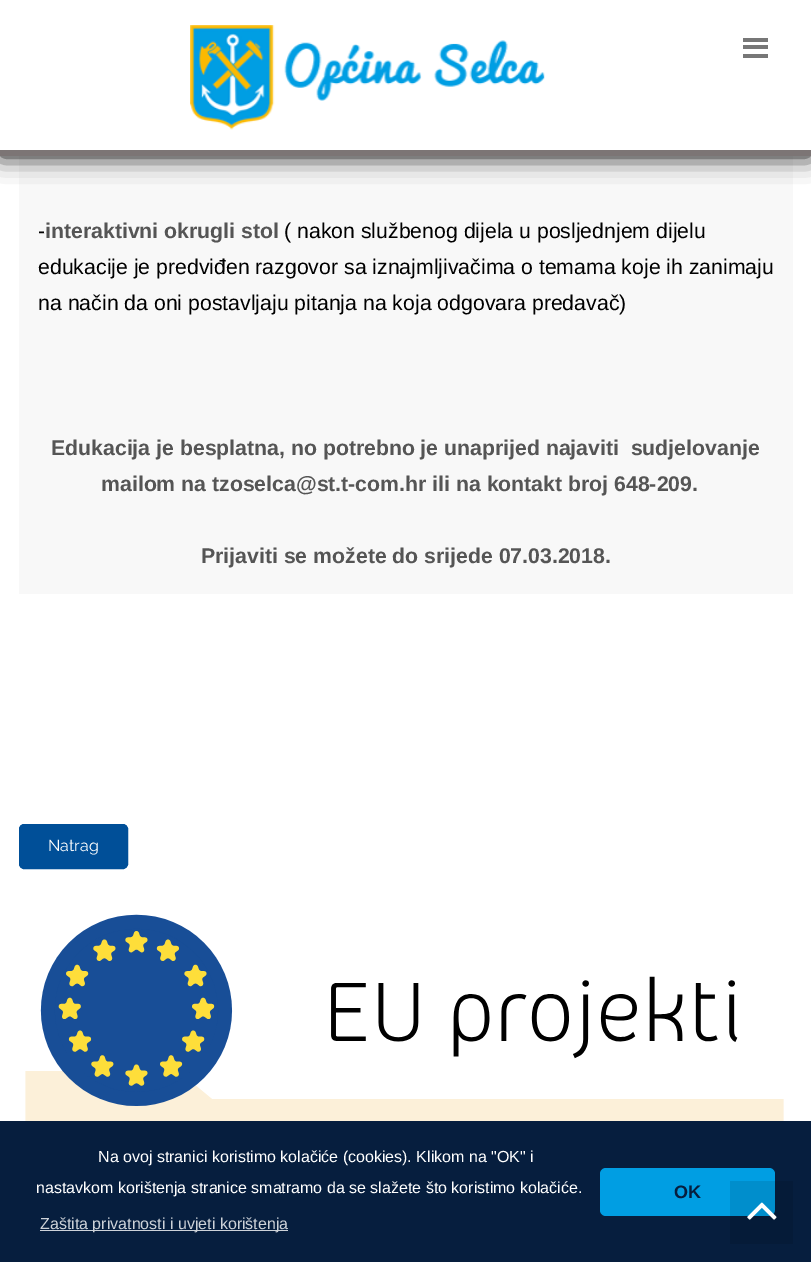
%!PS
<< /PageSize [811 1262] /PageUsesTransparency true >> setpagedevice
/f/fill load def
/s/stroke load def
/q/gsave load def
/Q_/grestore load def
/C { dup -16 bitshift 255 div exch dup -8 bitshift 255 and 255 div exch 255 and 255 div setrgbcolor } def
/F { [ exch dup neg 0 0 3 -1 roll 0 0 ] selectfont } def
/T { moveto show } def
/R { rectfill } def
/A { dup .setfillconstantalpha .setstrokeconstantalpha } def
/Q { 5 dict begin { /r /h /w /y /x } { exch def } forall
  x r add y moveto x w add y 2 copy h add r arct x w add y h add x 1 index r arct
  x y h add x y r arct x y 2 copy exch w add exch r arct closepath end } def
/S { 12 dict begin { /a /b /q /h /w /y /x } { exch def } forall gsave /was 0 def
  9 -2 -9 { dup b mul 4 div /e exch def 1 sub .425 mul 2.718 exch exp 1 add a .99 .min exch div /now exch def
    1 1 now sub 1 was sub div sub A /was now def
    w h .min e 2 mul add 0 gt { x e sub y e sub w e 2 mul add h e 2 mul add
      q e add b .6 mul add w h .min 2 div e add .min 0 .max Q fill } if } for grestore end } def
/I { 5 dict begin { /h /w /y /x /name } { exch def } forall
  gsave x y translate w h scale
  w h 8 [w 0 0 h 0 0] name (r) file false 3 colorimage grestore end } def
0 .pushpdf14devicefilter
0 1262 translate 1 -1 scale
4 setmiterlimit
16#FFFFFF C
0 0 811 1262 R
16#F8F8F8 C
19 156 774 438 R
16#000000 C
0 0 811 156 0 12.5 1 S
16#FFFFFF C
0 0 811 150 R
16#7C7575 C
0 150 811 6 R
(1.rgb) 190 25 355 105 I
16#777777 C
743 38 25 4 R
743 45 25 4 R
743 54 25 4 R
/LiberationSans-Regular 21.25 F
16#000000 C
(-) 38 238 T
/LiberationSans-Bold 21.25 F
16#555555 C
(interaktivni okrugli stol) 45 238 T
/LiberationSans-Regular 21.25 F
16#000000 C
(\( nakon službenog dijela u posljednjem dijelu) 284 238 T
(edukacije je predviđen razgovor sa iznajmljivačima o temama koje ih zanimaju) 38 274 T
(na način da oni postavljaju pitanja na koja odgovara predavač\)) 38 310 T
/LiberationSans-Bold 21.25 F
16#555555 C
(Edukacija je besplatna, no potrebno je unaprijed najaviti  sudjelovanje) 51 455 T
(mailom na tzoselca@st.t-com.hr ili na kontakt broj 648-209.) 101 491 T
(Prijaviti se možete do srijede 07.03.2018.) 201 563 T
16#004F98 C
19.5 824.5 108 44 4.5 Q q f Q_
s
/Raleway-Regular 16 F
16#FFFFFF C
(Natrag) 48 851 T
(2.rgb) 25 914 759 207 I
16#061E3E C
0 1121 811 141 R
16#009EE3 C
600 1168 175 48 6 Q f
0.1 A
16#000000 C
730 1181 63 63 R
1 A
(3.rgb) 747 1202 30 18 I
/LiberationSans-Regular 16 F
16#FFFFFF C
(Na ovoj stranici koristimo kolačiće \(cookies\). Klikom na "OK" i) 98 1162 T
(nastavkom korištenja stranice smatramo da se slažete što koristimo kolačiće.) 36 1193 T
16#CDD2D8 C
40 1230 248 1 R
(Zaštita privatnosti i uvjeti korištenja) 40 1229 T
/LiberationSans-Bold 18 F
16#061E3E C
(OK) 674 1198 T
.poppdf14devicefilter showpage
